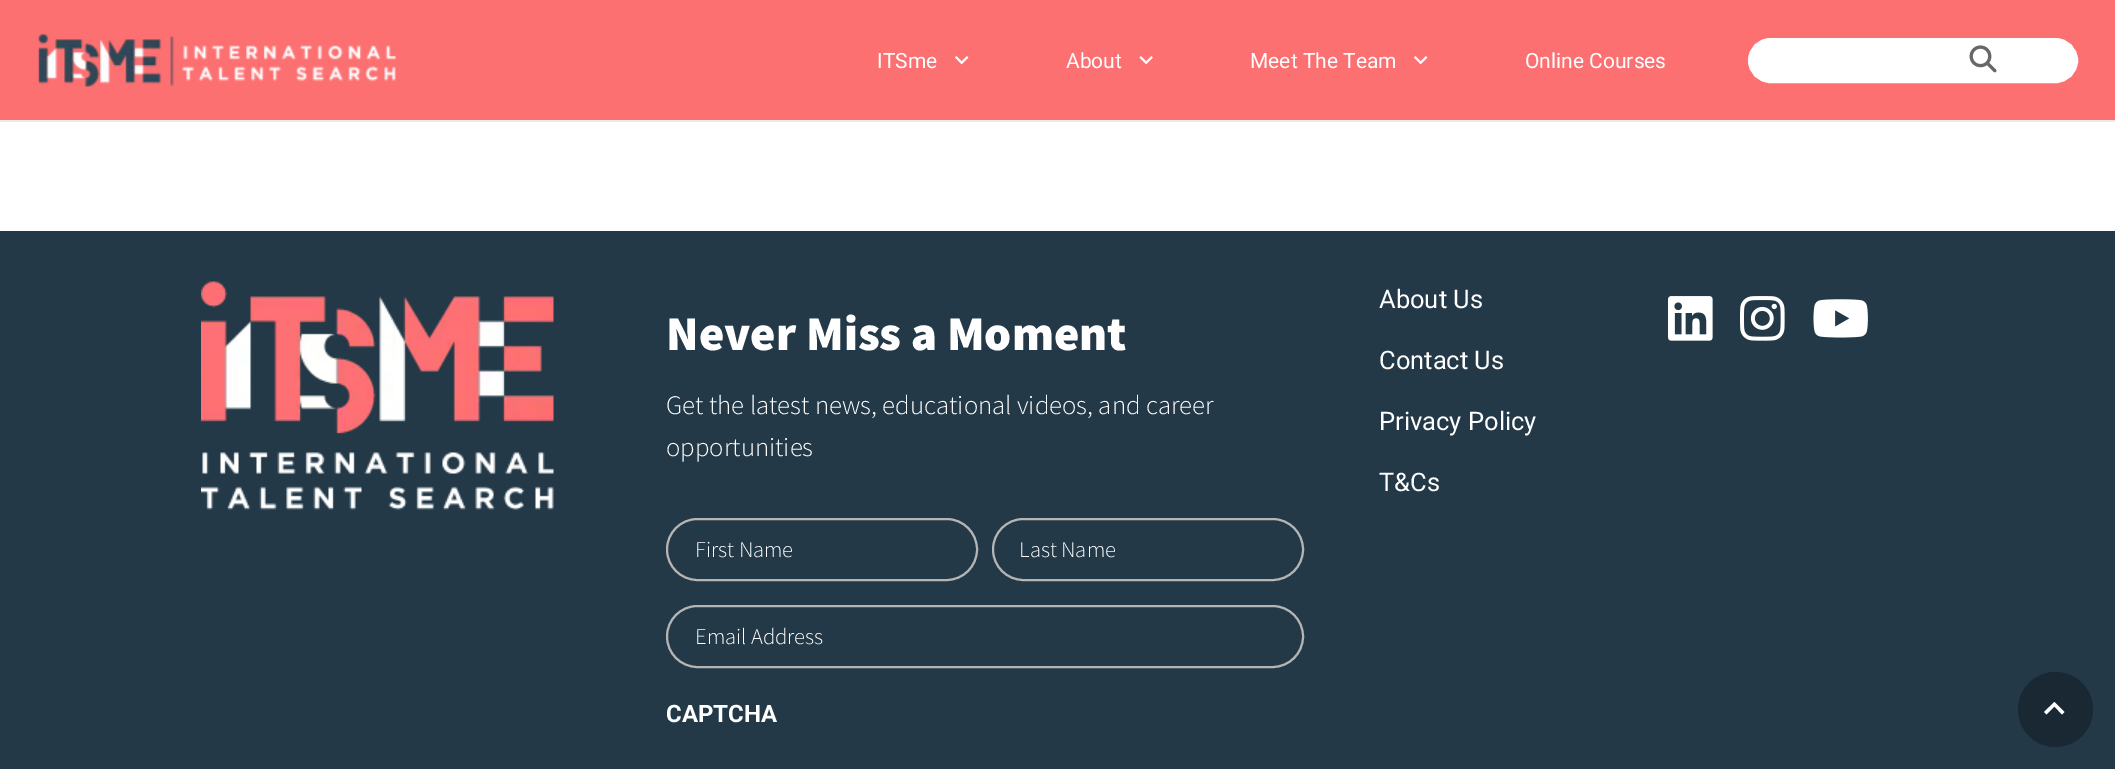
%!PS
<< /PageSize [2115 769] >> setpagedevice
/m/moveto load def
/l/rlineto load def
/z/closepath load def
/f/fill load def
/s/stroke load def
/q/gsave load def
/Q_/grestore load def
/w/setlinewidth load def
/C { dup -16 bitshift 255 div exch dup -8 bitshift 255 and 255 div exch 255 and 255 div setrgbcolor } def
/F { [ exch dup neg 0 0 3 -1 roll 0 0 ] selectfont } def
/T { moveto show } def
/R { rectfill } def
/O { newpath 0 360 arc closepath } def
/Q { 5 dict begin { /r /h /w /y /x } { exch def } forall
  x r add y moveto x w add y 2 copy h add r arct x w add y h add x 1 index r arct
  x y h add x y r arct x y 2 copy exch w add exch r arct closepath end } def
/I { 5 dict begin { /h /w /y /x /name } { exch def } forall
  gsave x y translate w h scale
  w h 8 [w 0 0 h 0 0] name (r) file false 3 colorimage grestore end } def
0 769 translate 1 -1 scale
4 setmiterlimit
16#FFFFFF C
0 0 2115 769 R
16#EBEBEB C
0 120 2115 2 R
16#FD7072 C
0 0 2115 120 R
(1.rgb) 38 34 358 53 I
/Roboto-Regular 21 F
16#FFFFFF C
(ITSme) 877 68 T
(2.rgb) 954 56 15 9 I
(About) 1066 68 T
(3.rgb) 1139 56 14 9 I
(Meet The Team) 1250 68 T
(2.rgb) 1413 56 15 9 I
(Online Courses) 1525 68 T
1749 39 328 43 21.5 Q q f Q_
2 w
s
(4.rgb) 1969 45 28 28 I
16#233947 C
0 231 2115 538 R
(5.rgb) 201 281 353 153 I
(6.rgb) 201 452 353 58 I
/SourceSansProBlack-Black 48.5 F
16#FFFFFF C
(Never Miss a Moment) 666 350 T
/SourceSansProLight-Light 26.75 F
(Get the latest news, educational videos, and career) 666 414 T
(opportunities) 666 456 T
16#B5B5B5 C
667 519 310 61 30.5 Q s
/SourceSansProLight-Light 22.5 F
16#FFFFFF C
(First Name) 695 557 T
16#B5B5B5 C
993 519 310 61 30.5 Q s
16#FFFFFF C
(Last Name) 1019 557 T
16#B5B5B5 C
667 606 636 61 30.5 Q s
16#FFFFFF C
(Email Address) 695 644 T
/Roboto-Bold 24 F
(CAPTCHA) 666 722 T
/Roboto-Regular 25.5 F
(About Us) 1379 308 T
(Contact Us) 1379 369 T
(Privacy Policy) 1379 430 T
(T&Cs) 1379 491 T
(7.rgb) 1668 296 45 45 I
(8.rgb) 1740 296 45 45 I
(9.rgb) 1813 299 55 39 I
16#192832 C
2055.5 709.5 37.5 O f
16#FFFFFF C
2046.5 714.5 m -2.5 -2.5 l 10.5 -10 l 10 10 l -2.5 2.5 l -7.5 -8 l z f
showpage
